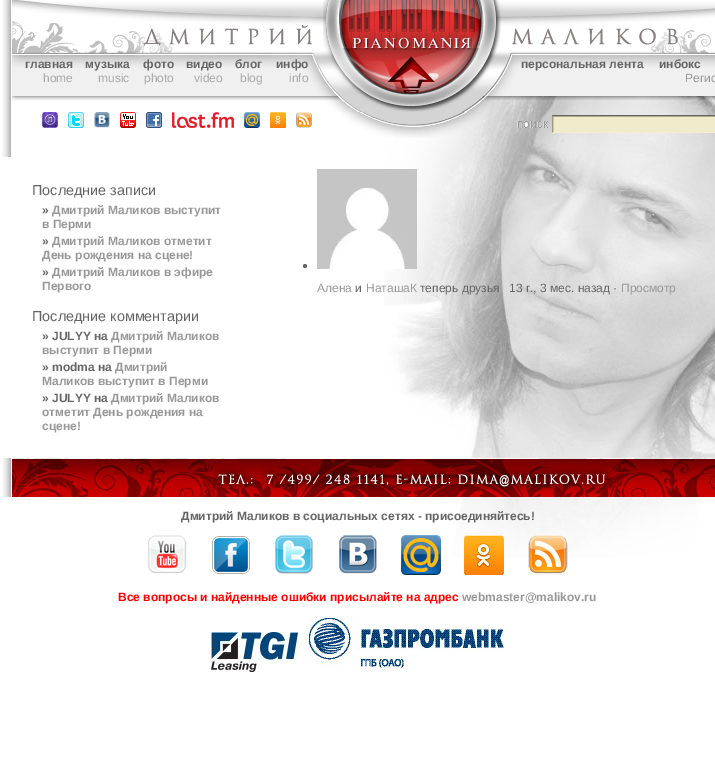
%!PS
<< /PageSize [715 761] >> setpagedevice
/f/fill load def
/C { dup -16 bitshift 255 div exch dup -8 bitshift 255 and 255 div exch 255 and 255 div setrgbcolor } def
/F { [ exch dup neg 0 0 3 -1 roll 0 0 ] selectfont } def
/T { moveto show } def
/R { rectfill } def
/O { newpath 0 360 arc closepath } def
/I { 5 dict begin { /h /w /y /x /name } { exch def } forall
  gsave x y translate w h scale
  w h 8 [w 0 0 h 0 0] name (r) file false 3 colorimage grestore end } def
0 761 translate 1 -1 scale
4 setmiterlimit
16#FFFFFF C
0 0 715 761 R
(1.rgb) 384 96 331 462 I
(2.rgb) 2 0 9 112 I
(3.rgb) 12 0 703 112 I
/LiberationSans-Bold 12 F
16#666666 C
(главная) 25 68 T
(музыка) 85 68 T
(фото) 143 68 T
(видео) 186 68 T
(блог) 235 68 T
(инфо) 276 68 T
/LiberationSans-Regular 12 F
16#A9A9A9 C
(home) 43 82 T
(music) 98 82 T
(photo) 144 82 T
(video) 194 82 T
(blog) 240 82 T
(info) 289 82 T
(4.rgb) 323 0 178 112 I
/LiberationSans-Bold 12 F
16#666666 C
(персональная лента) 521 68 T
(инбокс) 659 68 T
/LiberationSans-Regular 12 F
16#999999 C
(Регис) 685 82 T
(5.rgb) 2 112 9 45 I
(6.rgb) 42 112 16 16 I
(7.rgb) 68 112 16 16 I
(8.rgb) 94 112 16 16 I
(9.rgb) 120 112 16 16 I
(10.rgb) 146 112 16 16 I
(11.rgb) 172 112 62 16 I
(12.rgb) 244 112 16 16 I
(13.rgb) 270 112 16 16 I
(14.rgb) 296 112 16 16 I
(15.rgb) 341 112 142 26 I
(16.rgb) 517 121 31 7 I
(17.rgb) 552 115 2 19 I
(18.rgb) 554 115 161 18 I
/LiberationSans-Regular 14.4 F
16#666666 C
(Последние записи) 32 195 T
/LiberationSans-Bold 12 F
(») 42 214 T
16#999999 C
(Дмитрий Маликов выступит) 52 214 T
(в Перми) 42 228 T
16#666666 C
(») 42 245 T
16#999999 C
(Дмитрий Маликов отметит) 52 245 T
(День рождения на сцене!) 42 259 T
16#666666 C
(») 42 276 T
16#999999 C
(Дмитрий Маликов в эфире) 52 276 T
(Первого) 42 290 T
/LiberationSans-Regular 14.4 F
16#666666 C
(Последние комментарии) 32 321 T
/LiberationSans-Bold 12 F
(» JULYY на) 42 340 T
16#999999 C
(Дмитрий Маликов) 111 340 T
(выступит в Перми) 42 354 T
16#666666 C
(» modma на) 42 371 T
16#999999 C
(Дмитрий) 115 371 T
(Маликов выступит в Перми) 42 385 T
16#666666 C
(» JULYY на) 42 402 T
16#999999 C
(Дмитрий Маликов) 111 402 T
(отметит День рождения на) 42 416 T
(сцене!) 42 430 T
16#666666 C
305 266 2 O f
(19.rgb) 317 169 100 100 I
/LiberationSans-Regular 12 F
16#999999 C
(Алена) 317 292 T
16#666666 C
(и) 355 292 T
16#999999 C
(НаташаК) 366 292 T
16#666666 C
(теперь друзья) 420 292 T
(13 г., 3 мес. назад ·) 509 292 T
16#999999 C
(Просмотр) 621 292 T
(20.rgb) 2 458 9 39 I
(21.rgb) 12 458 703 39 I
/LiberationSans-Bold 12 F
16#666666 C
(Дмитрий Маликов в социальных сетях - присоединяйтесь!) 181 520 T
(22.rgb) 148 535 39 39 I
(23.rgb) 212 536 38 38 I
(24.rgb) 275 535 38 39 I
(25.rgb) 339 535 39 39 I
(26.rgb) 401 535 40 40 I
(27.rgb) 464 535 40 40 I
(28.rgb) 528 535 40 40 I
16#FF0000 C
(Все вопросы и найденные ошибки присылайте на адрес) 118 601 T
16#999999 C
(webmaster@malikov.ru) 462 601 T
(29.rgb) 211 632 87 40 I
(30.rgb) 309 618 195 54 I
showpage
